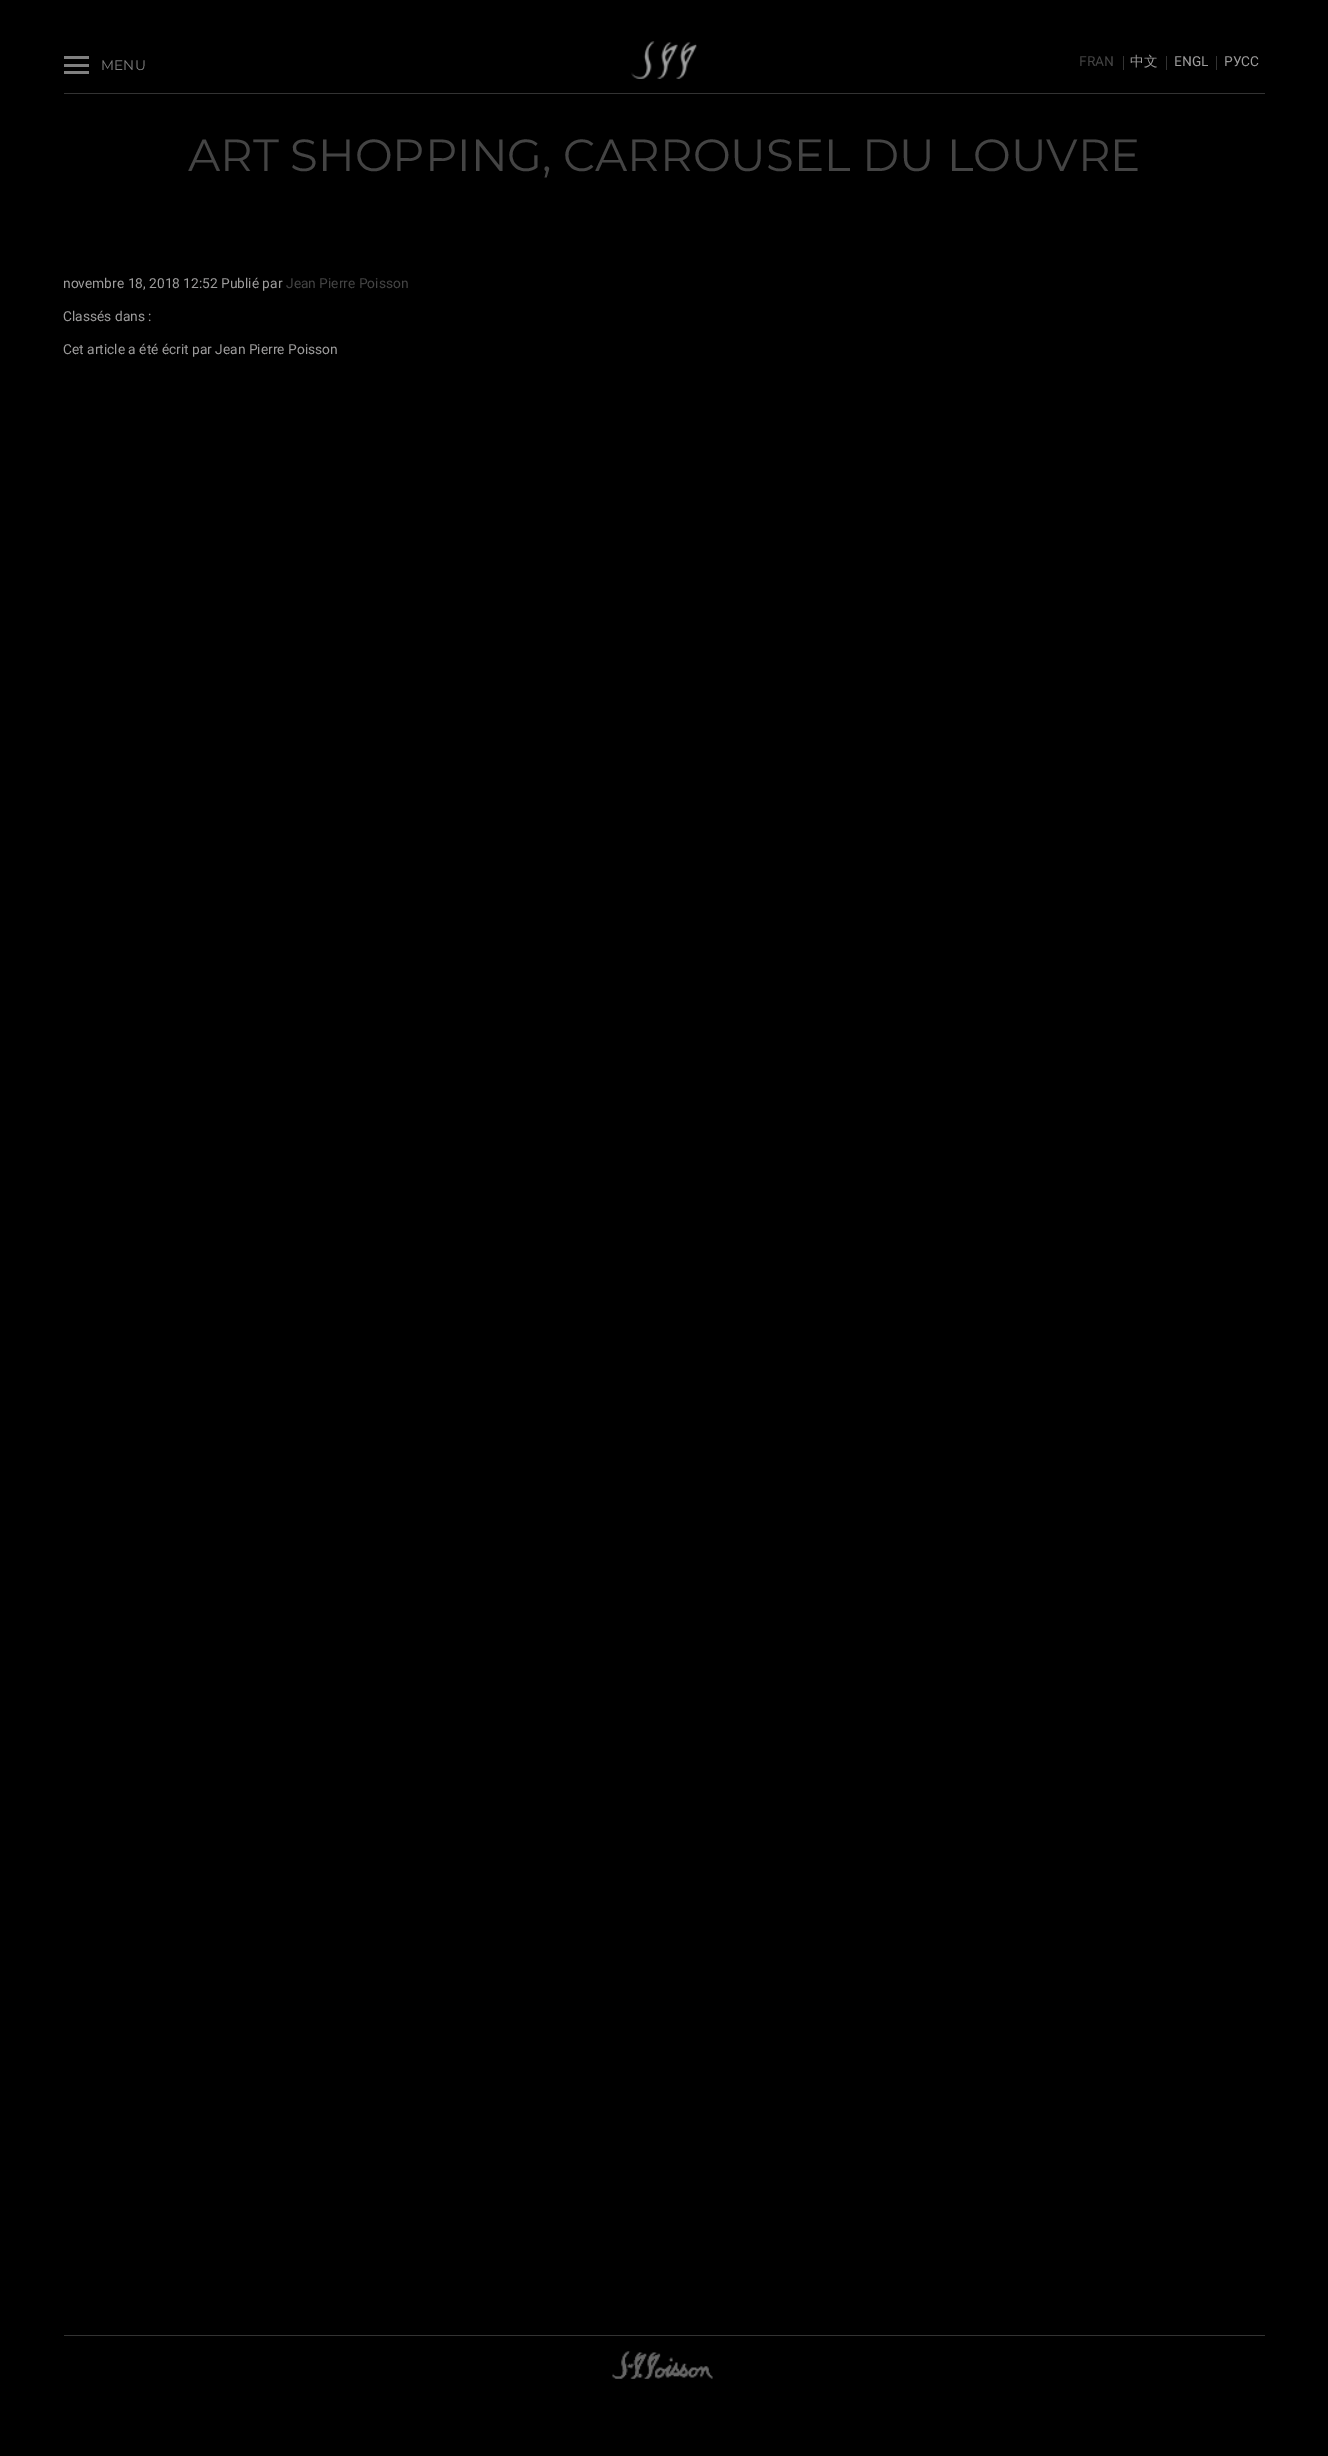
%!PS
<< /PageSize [1328 2456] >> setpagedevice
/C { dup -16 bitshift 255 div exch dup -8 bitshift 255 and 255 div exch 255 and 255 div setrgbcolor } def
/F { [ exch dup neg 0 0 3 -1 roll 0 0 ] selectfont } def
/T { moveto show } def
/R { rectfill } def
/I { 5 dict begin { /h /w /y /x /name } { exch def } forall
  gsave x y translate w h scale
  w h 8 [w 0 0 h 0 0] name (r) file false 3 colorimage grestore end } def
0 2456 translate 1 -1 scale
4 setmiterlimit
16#000000 C
0 0 1328 2456 R
16#333333 C
64 93 1201 1 R
16#808080 C
64 56 25 3 R
64 64 25 3 R
/Montserrat-Regular 13.75 F
(MENU) 101 70 T
64 71 25 3 R
(1.rgb) 631 41 66 38 I
/Roboto-Regular 13.75 F
16#444444 C
(FRAN) 1079 66 T
16#333333 C
1123 56 1 14 R
/WenQuanYiZenHei-Medium 13.75 F
16#9E9D9D C
(中文) 1130 66 T
16#333333 C
1166 56 1 14 R
/Roboto-Regular 13.75 F
16#9E9D9D C
(ENGL) 1174 66 T
16#333333 C
1216 56 1 14 R
16#9E9D9D C
(РУСС) 1224 66 T
/Montserrat-Regular 45 F
16#444444 C
(ART SHOPPING, CARROUSEL DU LOUVRE) 188 171 T
/Roboto-Regular 13.75 F
16#9E9D9D C
(novembre 18, 2018 12:52 Publié par) 63 288 T
16#444444 C
(Jean Pierre Poisson) 286 288 T
16#9E9D9D C
(Classés dans :) 63 321 T
(Cet article a été écrit par Jean Pierre Poisson) 63 354 T
16#333333 C
64 2335 1201 1 R
(2.rgb) 612 2351 101 28 I
showpage
